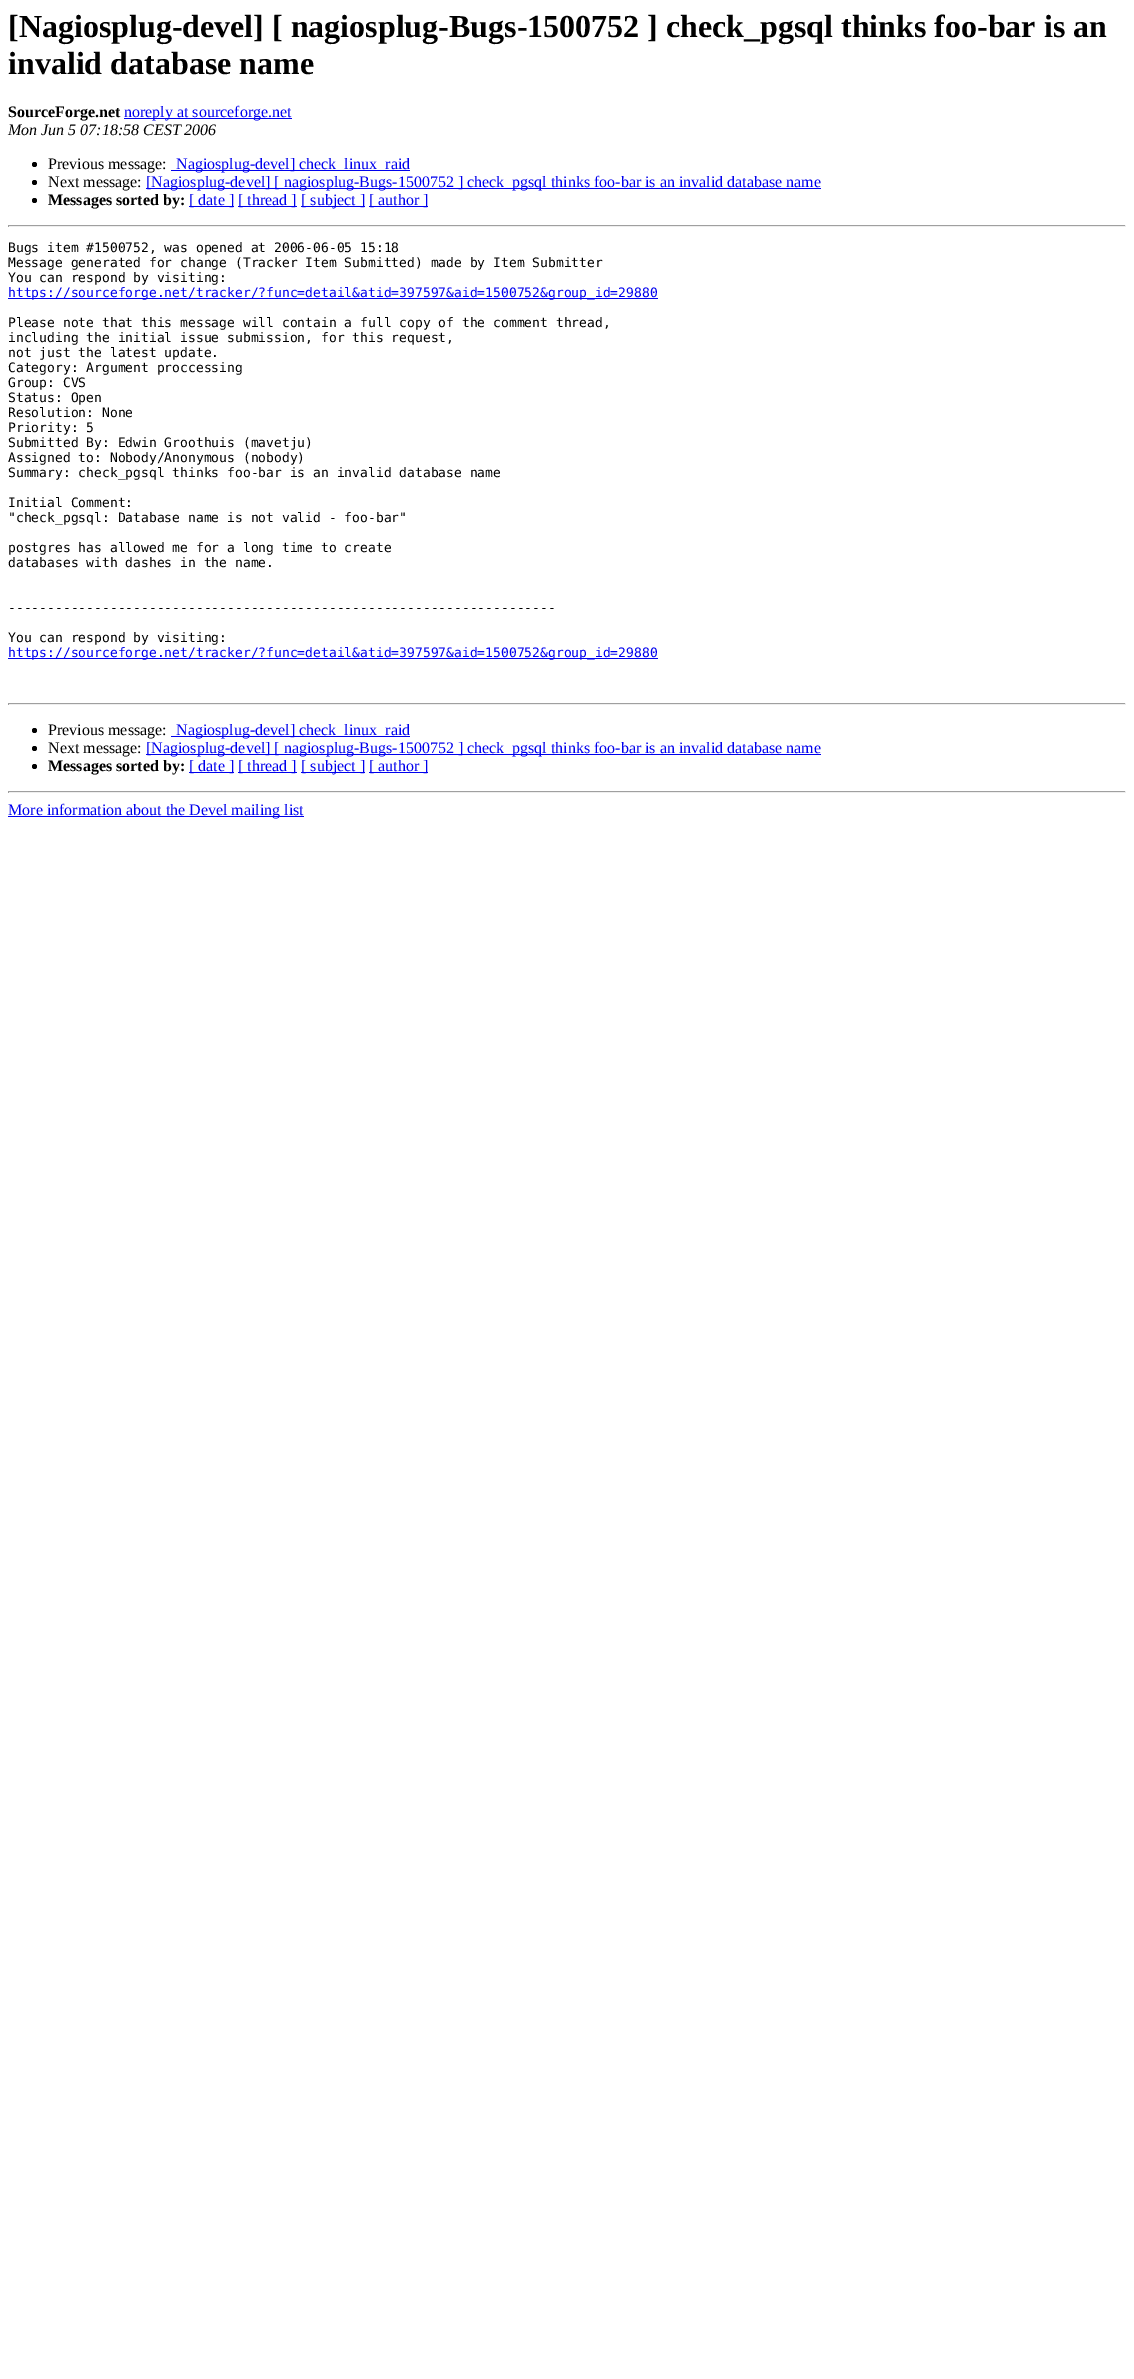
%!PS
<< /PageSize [1134 2379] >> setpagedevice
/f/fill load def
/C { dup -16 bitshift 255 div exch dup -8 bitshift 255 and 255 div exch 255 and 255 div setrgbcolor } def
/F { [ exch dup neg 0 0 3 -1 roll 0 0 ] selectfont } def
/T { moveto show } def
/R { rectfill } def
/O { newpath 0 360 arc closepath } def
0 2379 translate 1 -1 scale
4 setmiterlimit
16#FFFFFF C
0 0 1134 2379 R
/LiberationSerif-Bold 32 F
16#000000 C
([Nagiosplug-devel] [ nagiosplug-Bugs-1500752 ] check_pgsql thinks foo-bar is an) 8 37 T
(invalid database name) 8 74 T
/LiberationSerif-Bold 16 F
(SourceForge.net) 8 117 T
16#0000EE C
124 118 168 1 R
/LiberationSerif-Regular 16 F
(noreply at sourceforge.net) 124 117 T
/LiberationSerif-Italic 16 F
16#000000 C
(Mon Jun 5 07:18:58 CEST 2006) 8 135 T
34.5 164.5 2.5 O f
/LiberationSerif-Regular 16 F
(Previous message:) 48 169 T
16#0000EE C
171 170 239 1 R
(Nagiosplug-devel] check_linux_raid) 176 169 T
16#000000 C
34.5 182.5 2.5 O f
(Next message:) 48 187 T
16#0000EE C
146 188 675 1 R
([Nagiosplug-devel] [ nagiosplug-Bugs-1500752 ] check_pgsql thinks foo-bar is an invalid database name) 146 187 T
16#000000 C
34.5 200.5 2.5 O f
/LiberationSerif-Bold 16 F
(Messages sorted by:) 48 205 T
16#0000EE C
189 206 45 1 R
/LiberationSerif-Regular 16 F
([ date ]) 189 205 T
238 206 59 1 R
([ thread ]) 238 205 T
301 206 64 1 R
([ subject ]) 301 205 T
369 206 59 1 R
([ author ]) 369 205 T
16#9F9F9F C
8 225 1118 1 R
16#EEEEEE C
1125 225 1 2 R
8 226 1118 1 R
16#9F9F9F C
8 225 1 2 R
/DejaVuSansMono-Regular 13 F
16#000000 C
(Bugs item #1500752, was opened at 2006-06-05 15:18) 8 252 T
(Message generated for change \(Tracker Item Submitted\) made by Item Submitter) 8 267 T
(You can respond by visiting:) 8 282 T
16#0000EE C
8 298 650 1 R
(https://sourceforge.net/tracker/?func=detail&atid=397597&aid=1500752&group_id=29880) 8 297 T
16#000000 C
(Please note that this message will contain a full copy of the comment thread,) 8 327 T
(including the initial issue submission, for this request,) 8 342 T
(not just the latest update.) 8 357 T
(Category: Argument proccessing) 8 372 T
(Group: CVS) 8 387 T
(Status: Open) 8 402 T
(Resolution: None) 8 417 T
(Priority: 5) 8 432 T
(Submitted By: Edwin Groothuis \(mavetju\)) 8 447 T
(Assigned to: Nobody/Anonymous \(nobody\)) 8 462 T
(Summary: check_pgsql thinks foo-bar is an invalid database name) 8 477 T
(Initial Comment:) 8 507 T
("check_pgsql: Database name is not valid - foo-bar") 8 522 T
(postgres has allowed me for a long time to create) 8 552 T
(databases with dashes in the name.) 8 567 T
(----------------------------------------------------------------------) 8 612 T
(You can respond by visiting:) 8 642 T
16#0000EE C
8 658 650 1 R
(https://sourceforge.net/tracker/?func=detail&atid=397597&aid=1500752&group_id=29880) 8 657 T
16#9F9F9F C
8 703 1118 1 R
16#EEEEEE C
1125 703 1 2 R
8 704 1118 1 R
16#9F9F9F C
8 703 1 2 R
16#000000 C
34.5 730.5 2.5 O f
/LiberationSerif-Regular 16 F
(Previous message:) 48 735 T
16#0000EE C
171 736 239 1 R
(Nagiosplug-devel] check_linux_raid) 176 735 T
16#000000 C
34.5 748.5 2.5 O f
(Next message:) 48 753 T
16#0000EE C
146 754 675 1 R
([Nagiosplug-devel] [ nagiosplug-Bugs-1500752 ] check_pgsql thinks foo-bar is an invalid database name) 146 753 T
16#000000 C
34.5 766.5 2.5 O f
/LiberationSerif-Bold 16 F
(Messages sorted by:) 48 771 T
16#0000EE C
189 772 45 1 R
/LiberationSerif-Regular 16 F
([ date ]) 189 771 T
238 772 59 1 R
([ thread ]) 238 771 T
301 772 64 1 R
([ subject ]) 301 771 T
369 772 59 1 R
([ author ]) 369 771 T
16#9F9F9F C
8 791 1118 1 R
16#EEEEEE C
1125 791 1 2 R
8 792 1118 1 R
16#9F9F9F C
8 791 1 2 R
16#0000EE C
8 816 296 1 R
(More information about the Devel mailing list) 8 815 T
showpage
